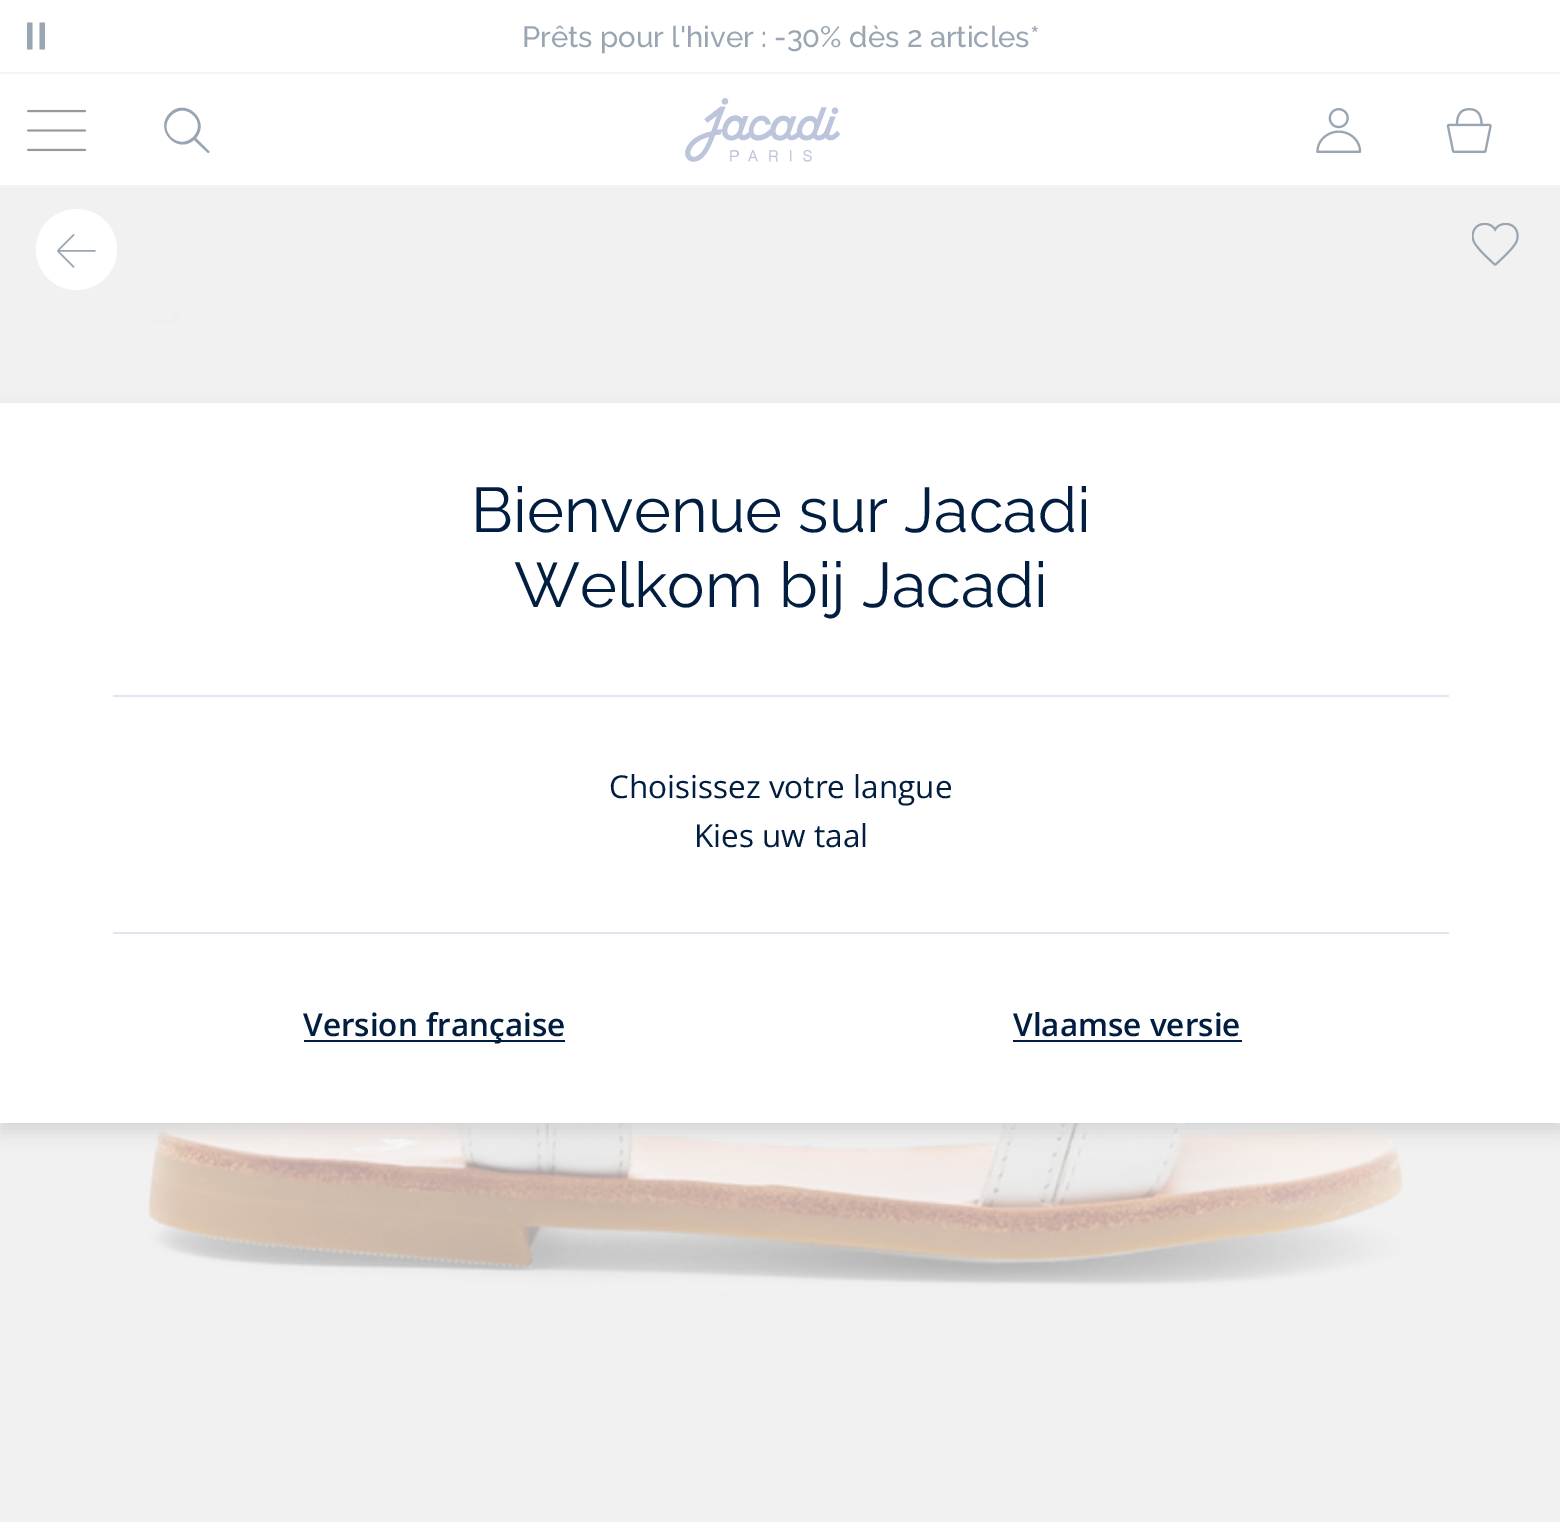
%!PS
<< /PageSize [1560 1522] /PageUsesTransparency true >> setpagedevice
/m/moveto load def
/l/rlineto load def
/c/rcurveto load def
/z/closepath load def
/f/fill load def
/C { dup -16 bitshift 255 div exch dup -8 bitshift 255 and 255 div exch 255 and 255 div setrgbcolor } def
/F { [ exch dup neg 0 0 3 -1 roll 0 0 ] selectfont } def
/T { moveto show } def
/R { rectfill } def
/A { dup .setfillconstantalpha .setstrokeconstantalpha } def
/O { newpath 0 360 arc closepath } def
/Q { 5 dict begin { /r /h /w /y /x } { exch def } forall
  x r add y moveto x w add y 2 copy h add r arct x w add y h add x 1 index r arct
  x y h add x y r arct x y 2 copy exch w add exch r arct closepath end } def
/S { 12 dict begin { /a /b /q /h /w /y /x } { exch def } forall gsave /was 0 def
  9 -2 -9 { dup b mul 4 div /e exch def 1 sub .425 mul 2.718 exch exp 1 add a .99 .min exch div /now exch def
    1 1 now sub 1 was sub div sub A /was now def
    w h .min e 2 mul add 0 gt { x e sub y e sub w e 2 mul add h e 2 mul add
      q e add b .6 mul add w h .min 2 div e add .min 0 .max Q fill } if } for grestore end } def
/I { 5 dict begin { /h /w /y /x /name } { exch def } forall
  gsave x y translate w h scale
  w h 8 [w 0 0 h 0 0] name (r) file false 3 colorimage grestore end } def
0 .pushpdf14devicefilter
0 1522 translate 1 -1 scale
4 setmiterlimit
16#FFFFFF C
0 0 1560 1522 R
16#F3F4F6 C
0 72 1560 2 R
16#99A5B3 C
32.5 22.5 m -5.5 0 l 0 27 l 5.5 0 l z 45 22.5 m -5.5 0 l 0 27 l 5.5 0 l z eofill
/Raleway-Thin 29.25 F
(Prêts pour l'hiver : -30% dès 2 articles*) 522 47 T
16#F3F4F6 C
0 185 1560 2 R
(1.rgb) 27 109 60 43 I
16#99A5B3 C
170 113 m 16 -16 41 8 26 25 c 13 13 l 1 1 0 2 -1 2 c -14 -13 l -17 15 -41 -11 -24 -27 c z 193 115 m -15 -14 -36 8 -22 22 c 15 15 37 -8 22 -22 c z eofill
(2.rgb) 685 98 156 64 I
(3.rgb) 1316 108 46 45 I
(4.rgb) 1446 108 46 45 I
(5.rgb) 0 187 1560 1335 I
16#FFFFFF C
76.5 249.5 40.5 O f
(6.rgb) 57 234 39 34 I
(7.rgb) 1472 223 47 43 I
16#BABABA C
0 412 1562 720 0 9 .5 S
16#FFFFFF C
0 403 1560 720 R
/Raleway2-Thin 63 F
16#011E41 C
(Bienvenue sur Jacadi) 471 532 T
(Welkom bij Jacadi) 514 607 T
16#E1E5EF C
113 695 1336 2 R
/OpenSans-Regular 31.5 F
16#011E41 C
(Choisissez votre langue) 609 798 T
(Kies uw taal) 694 847 T
16#E1E5EF C
113 932 1336 2 R
16#011E41 C
304 1040 261 2 R
/OpenSans-SemiBold 31.5 F
(Version française) 303 1036 T
(Vlaamse versie) 1013 1036 T
1013 1040 229 2 R
.poppdf14devicefilter showpage
